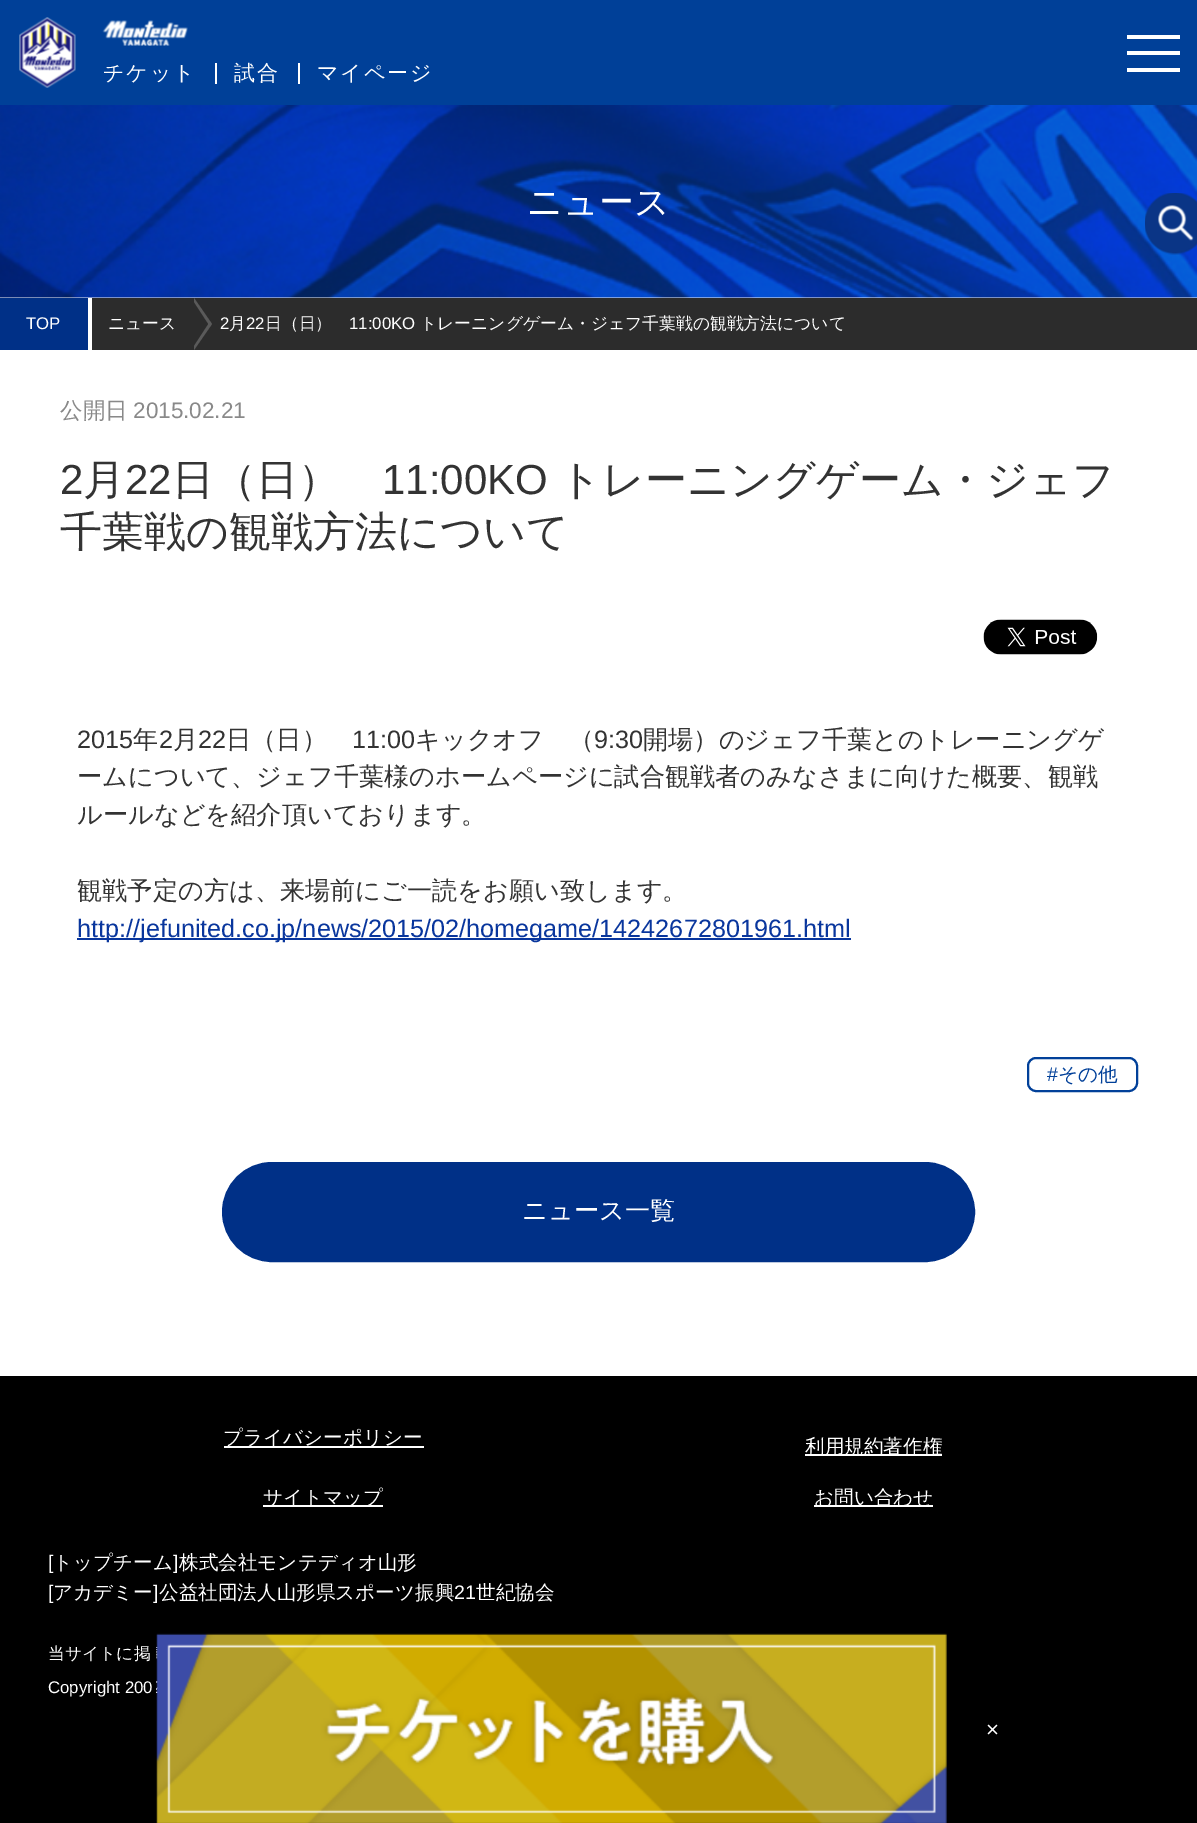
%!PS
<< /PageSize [1197 1823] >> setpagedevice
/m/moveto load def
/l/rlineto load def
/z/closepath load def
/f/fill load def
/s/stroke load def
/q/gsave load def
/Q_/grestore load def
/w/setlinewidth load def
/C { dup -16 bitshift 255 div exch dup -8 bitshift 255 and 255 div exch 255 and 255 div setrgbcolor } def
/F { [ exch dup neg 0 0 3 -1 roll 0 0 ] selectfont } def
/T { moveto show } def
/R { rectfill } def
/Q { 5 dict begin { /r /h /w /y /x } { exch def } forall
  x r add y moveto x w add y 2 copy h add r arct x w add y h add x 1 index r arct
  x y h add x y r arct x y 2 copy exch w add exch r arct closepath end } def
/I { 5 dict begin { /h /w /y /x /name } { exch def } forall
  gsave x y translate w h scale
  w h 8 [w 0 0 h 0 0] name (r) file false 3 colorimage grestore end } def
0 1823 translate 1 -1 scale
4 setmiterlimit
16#F7F7F7 C
0 0 1197 1823 R
16#004098 C
0 0 1197 105 R
(1.rgb) 19 17 57 71 I
(2.rgb) 102 20 86 26 I
/WenQuanYiZenHei-Medium 21 F
16#FFFFFF C
103 80 m 2 0 (チケット) ashow
215 63 2 21 R
234 80 m 2 0 (試合) ashow
298 63 2 21 R
317 80 m 2 0 (マイページ) ashow
1127 35 53 4 R
1127 51 53 4 R
1127 68 53 4 R
(3.rgb) 0 105 1197 193 I
/WenQuanYiZenHei-Medium 35 F
(ニュース) 527 214 T
16#2C2C2C C
92 298 1105 52 R
16#003087 C
0 298 88 52 R
16#FFFFFF C
88 298 4 52 R
/LiberationSans-Regular 16.8 F
(TOP) 26 329 T
16#5A5A5A C
194 350 m 0 -52 l 18 26 l z f
16#2C2C2C C
191 350 m 0 -52 l 17 26 l z f
/WenQuanYiZenHei-Medium 16.8 F
16#FFFFFF C
(ニュース) 108 329 T
/LiberationSans-Regular 16.8 F
(2) 220 329 T
/WenQuanYiZenHei-Medium 16.8 F
(月) 229 329 T
/LiberationSans-Regular 16.8 F
(22) 246 329 T
/WenQuanYiZenHei-Medium 16.8 F
(日（日）) 265 329 T
/LiberationSans-Regular 16.8 F
(11:00KO) 349 329 T
/WenQuanYiZenHei-Medium 16.8 F
(トレーニングゲーム・ジェフ千葉戦の観戦方法について) 420 329 T
(4.rgb) 1145 193 52 62 I
0 350 1197 1026 R
/WenQuanYiZenHei-Medium 22.5 F
16#898989 C
(公開日) 60 418 T
/LiberationSans-Regular 22.5 F
(2015.02.21) 133 418 T
/LiberationSans-Regular 42 F
16#333333 C
(2) 60 494 T
/WenQuanYiZenHei-Medium 42 F
(月) 83 494 T
/LiberationSans-Regular 42 F
(22) 125 494 T
/WenQuanYiZenHei-Medium 42 F
(日（日）) 172 494 T
/LiberationSans-Regular 42 F
(11:00KO) 382 494 T
/WenQuanYiZenHei-Medium 42 F
(トレーニングゲーム・ジェフ) 559 494 T
(千葉戦の観戦方法について) 60 546 T
(5.rgb) 983 619 115 36 I
/LiberationSans-Regular 25.2 F
(2015) 77 748 T
/WenQuanYiZenHei-Medium 25.2 F
(年) 133 748 T
/LiberationSans-Regular 25.2 F
(2) 159 748 T
/WenQuanYiZenHei-Medium 25.2 F
(月) 173 748 T
/LiberationSans-Regular 25.2 F
(22) 198 748 T
/WenQuanYiZenHei-Medium 25.2 F
(日（日）) 226 748 T
/LiberationSans-Regular 25.2 F
(11:00) 352 748 T
/WenQuanYiZenHei-Medium 25.2 F
(キックオフ　（) 415 748 T
/LiberationSans-Regular 25.2 F
(9:30) 594 748 T
/WenQuanYiZenHei-Medium 25.2 F
(開場）のジェフ千葉とのトレーニングゲ) 643 748 T
(ームについて、ジェフ千葉様のホームページに試合観戦者のみなさまに向けた概要、観戦) 77 785 T
(ルールなどを紹介頂いております。) 77 823 T
(観戦予定の方は、来場前にご一読をお願い致します。) 77 899 T
16#09369D C
77 938 774 2 R
/LiberationSans-Regular 25.2 F
(http://jefunited.co.jp/news/2015/02/homegame/14242672801961.html) 77 937 T
16#014099 C
2 w
1028 1058 109 33 8 Q s
/LiberationSans-Regular 19.6 F
(#) 1047 1081 T
/WenQuanYiZenHei-Medium 19.6 F
(その他) 1058 1081 T
16#003087 C
224.5 1164.5 748 95 47.5 Q q f Q_
5 w
s
/WenQuanYiZenHei-Medium 25.2 F
16#FFFFFF C
(ニュース一覧) 522 1219 T
16#000000 C
0 1376 1197 447 R
(6.rgb) 156 1633 791 190 I
/LiberationSans-Regular 22.5 F
16#FFFFFF C
(×) 986 1737 T
224 1446 200 2 R
/WenQuanYiZenHei-Medium 19.6 F
(プライバシーポリシー) 223 1444 T
805 1454 137 2 R
(利用規約著作権) 805 1453 T
263 1505 120 2 R
(サイトマップ) 263 1504 T
814 1505 119 2 R
(お問い合わせ) 814 1504 T
/LiberationSans-Regular 19.6 F
([) 48 1569 T
/WenQuanYiZenHei-Medium 19.6 F
(トップチーム) 53 1569 T
/LiberationSans-Regular 19.6 F
(]) 173 1569 T
/WenQuanYiZenHei-Medium 19.6 F
(株式会社モンテディオ山形) 179 1569 T
/LiberationSans-Regular 19.6 F
([) 48 1599 T
/WenQuanYiZenHei-Medium 19.6 F
(アカデミー) 53 1599 T
/LiberationSans-Regular 19.6 F
(]) 153 1599 T
/WenQuanYiZenHei-Medium 19.6 F
(公益社団法人山形県スポーツ振興) 159 1599 T
/LiberationSans-Regular 19.6 F
(21) 454 1599 T
/WenQuanYiZenHei-Medium 19.6 F
(世紀協会) 476 1599 T
/WenQuanYiZenHei-Medium 16.8 F
(当サイトに掲) 48 1659 T
/LiberationSans-Regular 16.8 F
(Copyright 200) 48 1693 T
showpage
